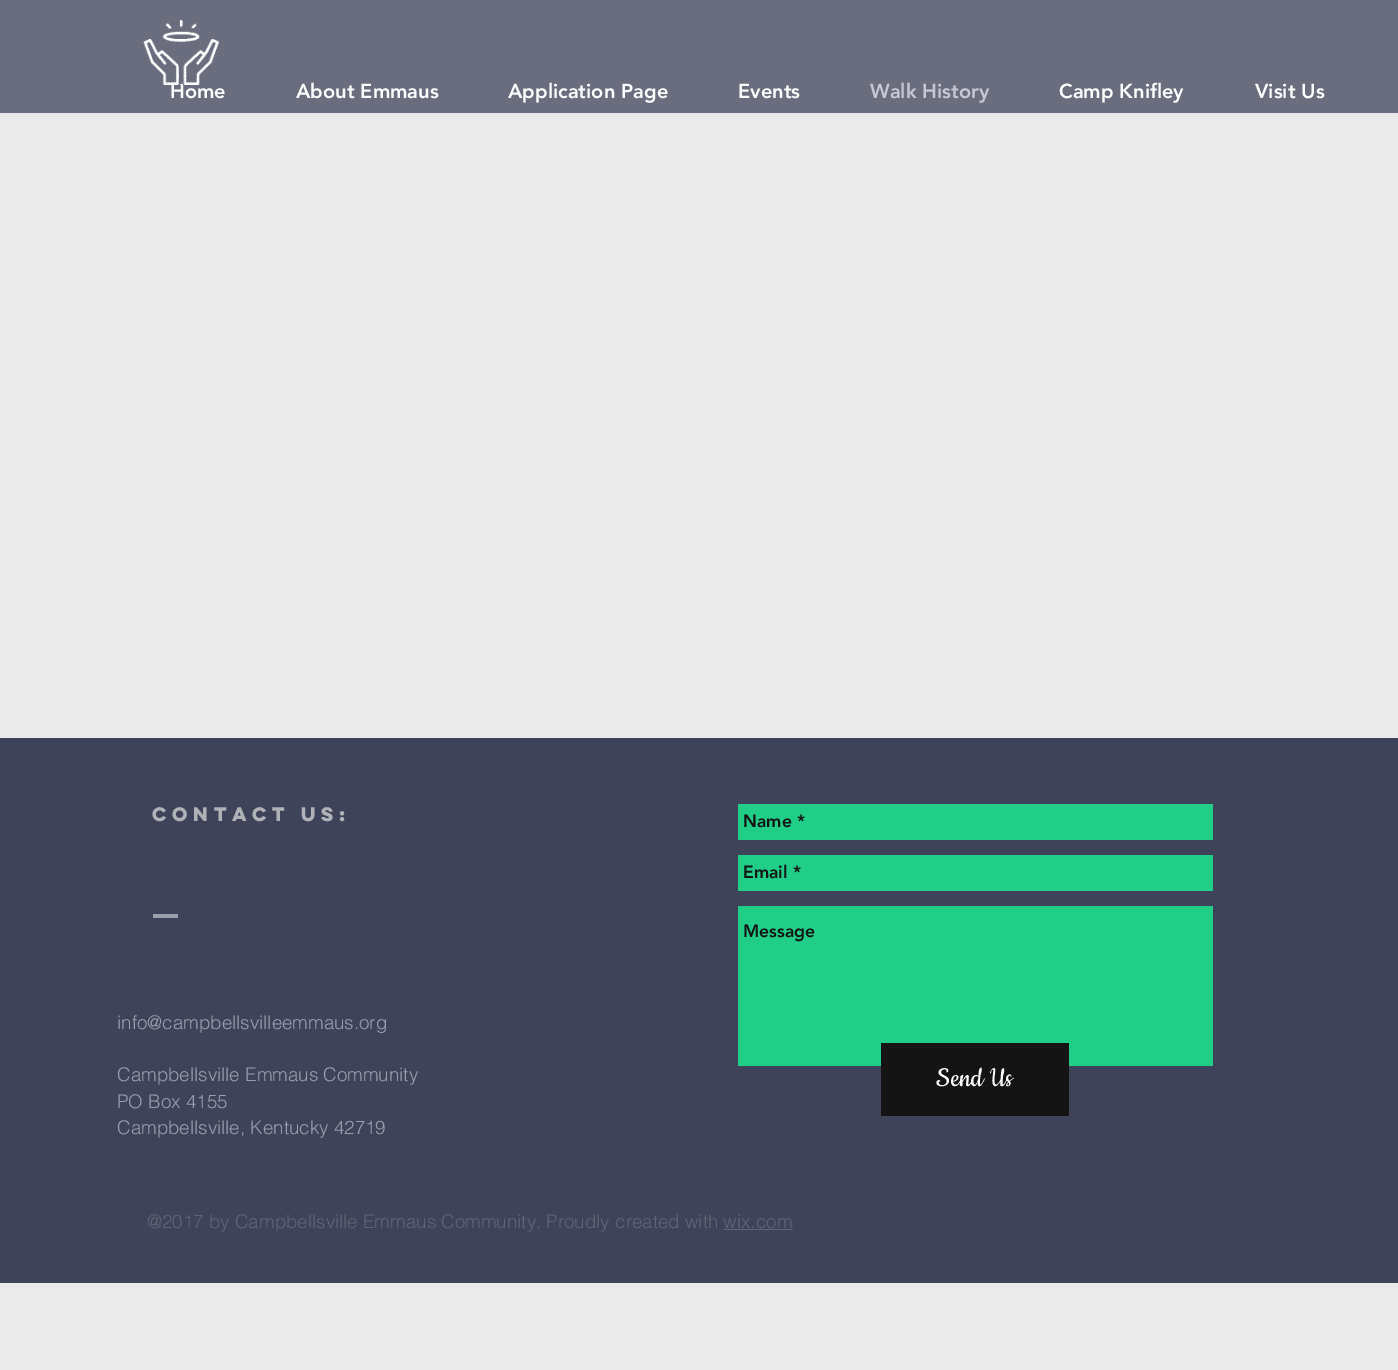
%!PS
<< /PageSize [1398 1370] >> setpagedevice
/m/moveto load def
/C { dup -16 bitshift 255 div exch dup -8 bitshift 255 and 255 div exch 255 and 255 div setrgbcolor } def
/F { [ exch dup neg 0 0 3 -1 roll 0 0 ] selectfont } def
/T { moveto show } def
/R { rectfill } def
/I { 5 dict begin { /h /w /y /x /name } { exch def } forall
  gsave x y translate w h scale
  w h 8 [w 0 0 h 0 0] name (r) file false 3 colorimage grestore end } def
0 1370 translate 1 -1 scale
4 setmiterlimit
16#EAEAEA C
0 0 1398 1370 R
16#6A6D7D C
0 0 1398 113 R
/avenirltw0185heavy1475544-Black 20 F
16#FCFCFC C
(Home) 170 98 T
(1.rgb) 143 20 76 65 I
(About Emmaus) 296 98 T
(Application Page) 508 98 T
(Events) 738 98 T
16#C6C8D5 C
(Walk History) 870 98 T
16#FCFCFC C
(Camp Knifley) 1059 98 T
(Visit Us) 1255 98 T
16#3F4359 C
0 738 1398 545 R
/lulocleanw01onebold-Bold 17.5 F
16#B0B2B8 C
152 821 m 1.75 0 (CONTACT US:) ashow
16#20CE88 C
738 804 475 36 R
/avenirltw0185heavy1475544-Black 17.5 F
16#141414 C
(Name *) 743 827 T
16#20CE88 C
738 855 475 36 R
16#141414 C
(Email *) 743 878 T
16#20CE88 C
738 906 475 160 R
16#141414 C
(Message) 743 937 T
881 1043 188 73 R
/Cookie-Regular 31 F
16#FCFCFC C
(Send Us) 936 1086 T
16#9B9EAC C
153 914 25 4 R
/helvetica-Light 18.75 F
(info@campbellsvilleemmaus.org) 117 1029 T
(Campbellsville Emmaus Community) 117 1081 T
(PO Box 4155) 117 1108 T
(Campbellsville, Kentucky 42719) 117 1134 T
16#616475 C
(@2017 by Campbellsville Emmaus Community. Proudly created with wix.com) 147 1228 T
724 1229 69 1 R
showpage
